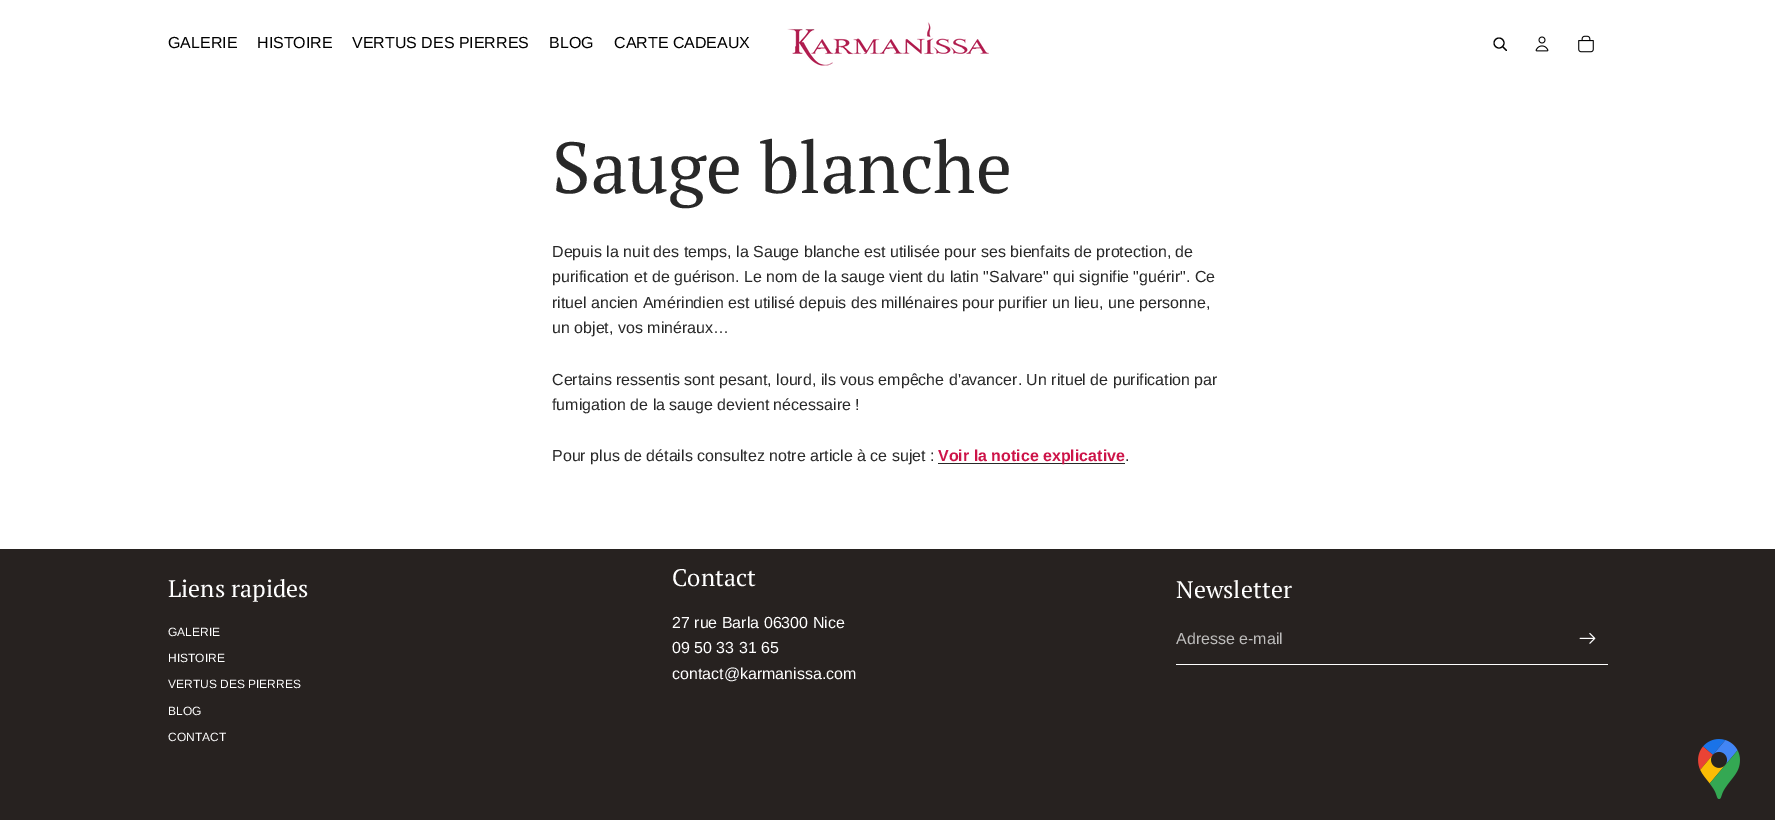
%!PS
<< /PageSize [1775 820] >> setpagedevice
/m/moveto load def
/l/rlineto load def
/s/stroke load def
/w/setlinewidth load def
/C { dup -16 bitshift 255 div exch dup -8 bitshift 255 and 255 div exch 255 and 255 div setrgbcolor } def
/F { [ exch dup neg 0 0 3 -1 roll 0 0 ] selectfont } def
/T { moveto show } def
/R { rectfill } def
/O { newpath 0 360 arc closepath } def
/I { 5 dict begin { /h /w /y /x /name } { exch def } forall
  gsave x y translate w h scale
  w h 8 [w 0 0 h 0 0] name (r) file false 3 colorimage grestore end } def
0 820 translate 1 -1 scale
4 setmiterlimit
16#FFFFFF C
0 0 1775 820 R
/Arimo-Regular 16 F
16#000000 C
(GALERIE) 168 48 T
(HISTOIRE) 257 48 T
(VERTUS DES PIERRES) 352 48 T
(BLOG) 549 48 T
(CARTE CADEAUX) 614 48 T
(1.rgb) 787 22 202 44 I
1.1 w
1499 43 5 O s
1 setlinecap
1 setlinejoin
1503 47 m 3.5 3.5 l s
(2.rgb) 1535 36 14 16 I
(3.rgb) 1578 35 16 18 I
/PTSerif-Regular 72 F
16#282828 C
(Sauge blanche) 552 193 T
/Arimo-Regular 16 F
(Depuis la nuit des temps, la Sauge blanche est utilisée pour ses bienfaits de protection, de) 552 257 T
(purification et de guérison. Le nom de la sauge vient du latin "Salvare" qui signifie "guérir". Ce) 552 282 T
(rituel ancien Amérindien est utilisé depuis des millénaires pour purifier un lieu, une personne,) 552 308 T
(un objet, vos minéraux…) 552 333 T
(Certains ressentis sont pesant, lourd, ils vous empêche d'avancer. Un rituel de purification par) 552 385 T
(fumigation de la sauge devient nécessaire !) 552 410 T
(Pour plus de détails consultez notre article à ce sujet :) 552 461 T
938 463 187 1 R
/Arimo-Bold 16 F
16#CD1348 C
(Voir la notice explicative) 938 461 T
/Arimo-Regular 16 F
16#282828 C
(.) 1125 461 T
16#272220 C
0 549 1775 271 R
/PTSerif-Regular 24 F
16#FFFFFF C
(Liens rapides) 168 597 T
/Arimo-Regular 12 F
(GALERIE) 168 636 T
(HISTOIRE) 168 662 T
(VERTUS DES PIERRES) 168 688 T
(BLOG) 168 715 T
(CONTACT) 168 741 T
/PTSerif-Regular 24 F
(Contact) 672 586 T
/Arimo-Regular 16 F
(27 rue Barla 06300 Nice) 672 628 T
(09 50 33 31 65) 672 653 T
(contact@karmanissa.com) 672 679 T
/PTSerif-Regular 24 F
(Newsletter) 1176 598 T
1176 664 432 1 R
/Arimo-Regular 16 F
16#BEBDBC C
(Adresse e-mail) 1176 644 T
(4.rgb) 1579 632 17 12 I
(5.rgb) 1698 739 42 60 I
showpage
